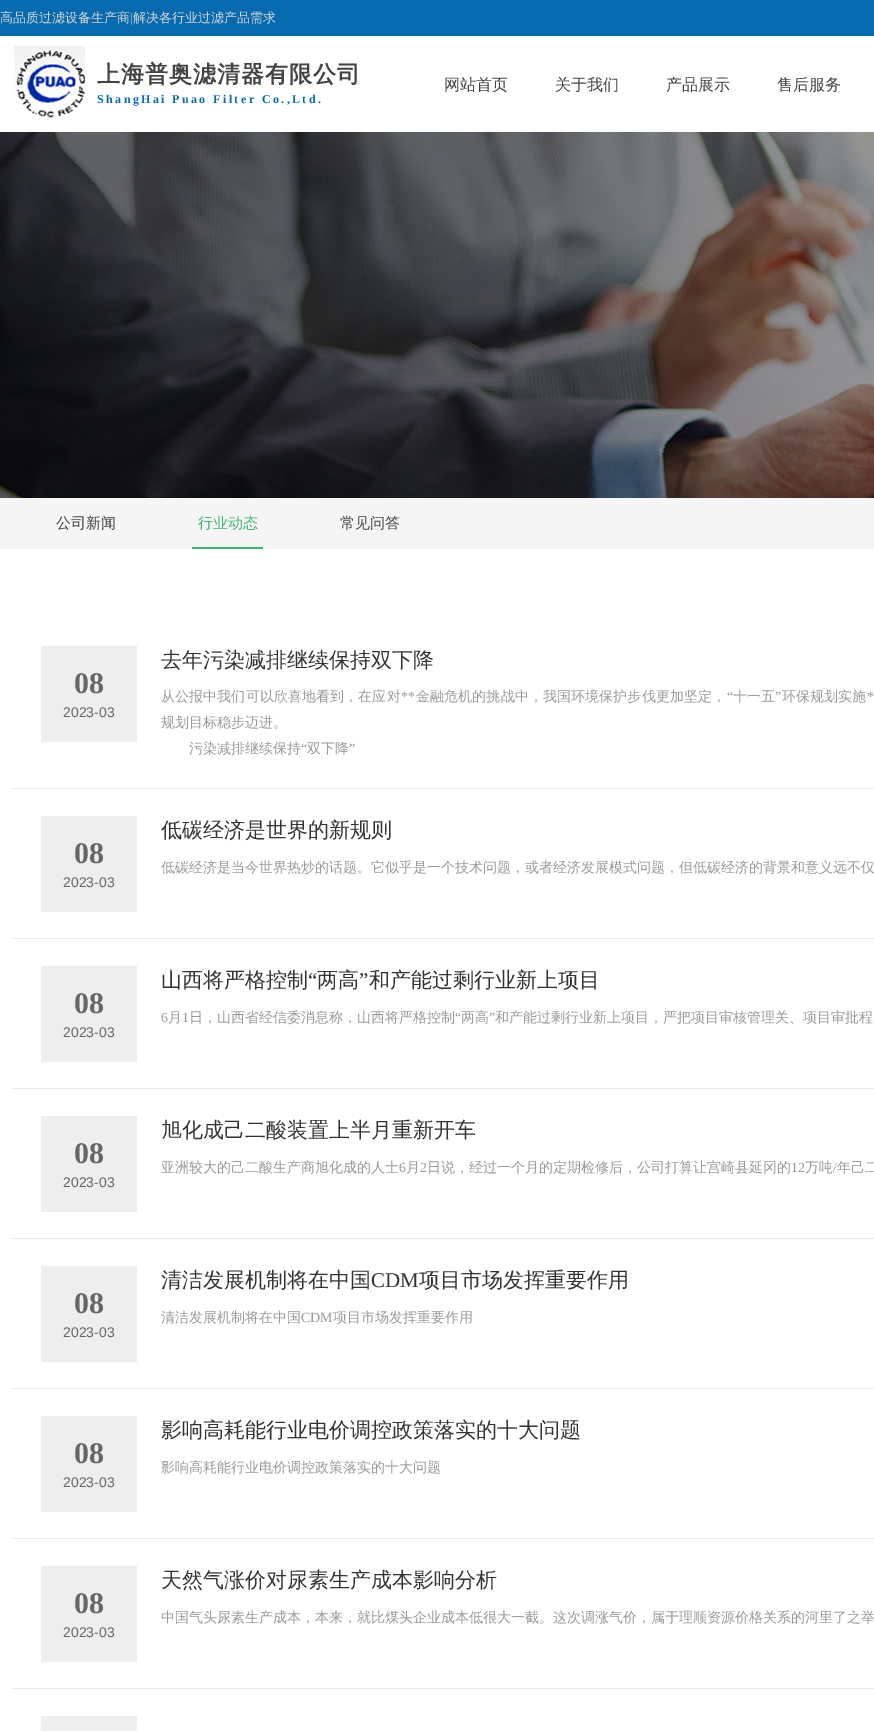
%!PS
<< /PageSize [874 1731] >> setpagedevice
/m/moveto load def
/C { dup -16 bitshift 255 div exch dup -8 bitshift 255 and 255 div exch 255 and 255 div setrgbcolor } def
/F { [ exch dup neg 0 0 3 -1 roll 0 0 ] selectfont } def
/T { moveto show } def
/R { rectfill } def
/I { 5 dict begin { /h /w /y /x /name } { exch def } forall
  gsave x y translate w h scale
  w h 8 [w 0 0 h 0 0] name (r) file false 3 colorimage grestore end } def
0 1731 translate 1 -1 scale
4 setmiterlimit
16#FFFFFF C
0 0 874 1731 R
16#076AAE C
0 0 874 36 R
/WenQuanYiZenHei-Medium 13 F
16#D9D9D9 C
(高品质过滤设备生产商) 0 22 T
/LiberationSerif-Regular 13 F
(|) 130 22 T
/WenQuanYiZenHei-Medium 13 F
(解决各行业过滤产品需求) 133 22 T
(1.rgb) 14 46 71 72 I
/WenQuanYiZenHei-Bold 23 F
16#434343 C
97 82 m 1 0 (上海普奥滤清器有限公司) ashow
/WenQuanYiZenHei-Medium 16 F
(网站首页) 444 90 T
(关于我们) 555 90 T
(产品展示) 666 90 T
(售后服务) 777 90 T
/LiberationSerif-Bold 12 F
16#076AAE C
97 103 m 2.4 0 (ShangHai Puao Filter Co.,Ltd.) ashow
(2.rgb) 0 132 874 366 I
16#F5F5F5 C
0 498 874 51 R
/WenQuanYiZenHei-Medium 15 F
16#434343 C
(公司新闻) 56 528 T
16#3CB371 C
192 547 71 2 R
(行业动态) 198 528 T
16#434343 C
(常见问答) 340 528 T
16#ECECEC C
11 788 863 1 R
16#EEEEEE C
41 646 96 96 R
/LiberationSerif-Bold 30 F
16#666666 C
(08) 74 693 T
/LiberationSans-Regular 14 F
(2023-03) 63 717 T
/WenQuanYiZenHei-Medium 21 F
16#333333 C
(去年污染减排继续保持双下降) 161 667 T
/WenQuanYiZenHei-Medium 14 F
16#999999 C
161 701 m .1 0 (从公报中我们可以欣喜地看到，在应对) ashow
/LiberationSerif-Regular 14 F
401 701 m .1 0 (**) ashow
/WenQuanYiZenHei-Medium 14 F
416 701 m .1 0 (金融危机的挑战中，我国环境保护步伐更加坚定，) ashow
/LiberationSerif-Regular 14 F
727 701 m .1 0 (“) ashow
/WenQuanYiZenHei-Medium 14 F
733 701 m .1 0 (十一五) ashow
/LiberationSerif-Regular 14 F
775 701 m .1 0 (”) ashow
/WenQuanYiZenHei-Medium 14 F
782 701 m .1 0 (环保规划实施) ashow
/LiberationSerif-Regular 14 F
867 701 m .1 0 (*) ashow
/WenQuanYiZenHei-Medium 14 F
(规划目标稳步迈进。) 161 727 T
(污染减排继续保持) 189 753 T
/LiberationSerif-Regular 14 F
(“) 301 753 T
/WenQuanYiZenHei-Medium 14 F
(双下降) 307 753 T
/LiberationSerif-Regular 14 F
(”) 349 753 T
16#ECECEC C
11 938 863 1 R
16#EEEEEE C
41 816 96 96 R
/LiberationSerif-Bold 30 F
16#666666 C
(08) 74 863 T
/LiberationSans-Regular 14 F
(2023-03) 63 887 T
/WenQuanYiZenHei-Medium 21 F
16#333333 C
(低碳经济是世界的新规则) 161 837 T
/WenQuanYiZenHei-Medium 14 F
16#999999 C
(低碳经济是当今世界热炒的话题。它似乎是一个技术问题，或者经济发展模式问题，但低碳经济的背景和意义远不仅) 161 872 T
16#ECECEC C
11 1088 863 1 R
16#EEEEEE C
41 966 96 96 R
/LiberationSerif-Bold 30 F
16#666666 C
(08) 74 1013 T
/LiberationSans-Regular 14 F
(2023-03) 63 1037 T
/WenQuanYiZenHei-Medium 21 F
16#333333 C
(山西将严格控制) 161 987 T
/LiberationSerif-Regular 21 F
(“) 308 987 T
/WenQuanYiZenHei-Medium 21 F
(两高) 317 987 T
/LiberationSerif-Regular 21 F
(”) 359 987 T
/WenQuanYiZenHei-Medium 21 F
(和产能过剩行业新上项目) 369 987 T
/LiberationSerif-Regular 14 F
16#999999 C
(6) 161 1022 T
/WenQuanYiZenHei-Medium 14 F
(月) 168 1022 T
/LiberationSerif-Regular 14 F
(1) 182 1022 T
/WenQuanYiZenHei-Medium 14 F
(日，山西省经信委消息称，山西将严格控制) 189 1022 T
/LiberationSerif-Regular 14 F
(“) 455 1022 T
/WenQuanYiZenHei-Medium 14 F
(两高) 461 1022 T
/LiberationSerif-Regular 14 F
(”) 489 1022 T
/WenQuanYiZenHei-Medium 14 F
(和产能过剩行业新上项目，严把项目审核管理关、项目审批程) 495 1022 T
16#ECECEC C
11 1238 863 1 R
16#EEEEEE C
41 1116 96 96 R
/LiberationSerif-Bold 30 F
16#666666 C
(08) 74 1163 T
/LiberationSans-Regular 14 F
(2023-03) 63 1187 T
/WenQuanYiZenHei-Medium 21 F
16#333333 C
(旭化成己二酸装置上半月重新开车) 161 1137 T
/WenQuanYiZenHei-Medium 14 F
16#999999 C
(亚洲较大的己二酸生产商旭化成的人士) 161 1172 T
/LiberationSerif-Regular 14 F
(6) 399 1172 T
/WenQuanYiZenHei-Medium 14 F
(月) 406 1172 T
/LiberationSerif-Regular 14 F
(2) 420 1172 T
/WenQuanYiZenHei-Medium 14 F
(日说，经过一个月的定期检修后，公司打算让宫崎县延冈的) 427 1172 T
/LiberationSerif-Regular 14 F
(12) 791 1172 T
/WenQuanYiZenHei-Medium 14 F
(万吨) 805 1172 T
/LiberationSerif-Regular 14 F
(/) 833 1172 T
/WenQuanYiZenHei-Medium 14 F
(年己二) 837 1172 T
16#ECECEC C
11 1388 863 1 R
16#EEEEEE C
41 1266 96 96 R
/LiberationSerif-Bold 30 F
16#666666 C
(08) 74 1313 T
/LiberationSans-Regular 14 F
(2023-03) 63 1337 T
/WenQuanYiZenHei-Medium 21 F
16#333333 C
(清洁发展机制将在中国) 161 1287 T
/LiberationSerif-Regular 21 F
(CDM) 371 1287 T
/WenQuanYiZenHei-Medium 21 F
(项目市场发挥重要作用) 419 1287 T
/WenQuanYiZenHei-Medium 14 F
16#999999 C
(清洁发展机制将在中国) 161 1322 T
/LiberationSerif-Regular 14 F
(CDM) 301 1322 T
/WenQuanYiZenHei-Medium 14 F
(项目市场发挥重要作用) 333 1322 T
16#ECECEC C
11 1538 863 1 R
16#EEEEEE C
41 1416 96 96 R
/LiberationSerif-Bold 30 F
16#666666 C
(08) 74 1463 T
/LiberationSans-Regular 14 F
(2023-03) 63 1487 T
/WenQuanYiZenHei-Medium 21 F
16#333333 C
(影响高耗能行业电价调控政策落实的十大问题) 161 1437 T
/WenQuanYiZenHei-Medium 14 F
16#999999 C
(影响高耗能行业电价调控政策落实的十大问题) 161 1472 T
16#ECECEC C
11 1688 863 1 R
16#EEEEEE C
41 1566 96 96 R
/LiberationSerif-Bold 30 F
16#666666 C
(08) 74 1613 T
/LiberationSans-Regular 14 F
(2023-03) 63 1637 T
/WenQuanYiZenHei-Medium 21 F
16#333333 C
(天然气涨价对尿素生产成本影响分析) 161 1587 T
/WenQuanYiZenHei-Medium 14 F
16#999999 C
(中国气头尿素生产成本，本来，就比煤头企业成本低很大一截。这次调涨气价，属于理顺资源价格关系的河里了之举) 161 1622 T
16#EEEEEE C
41 1716 96 15 R
showpage
